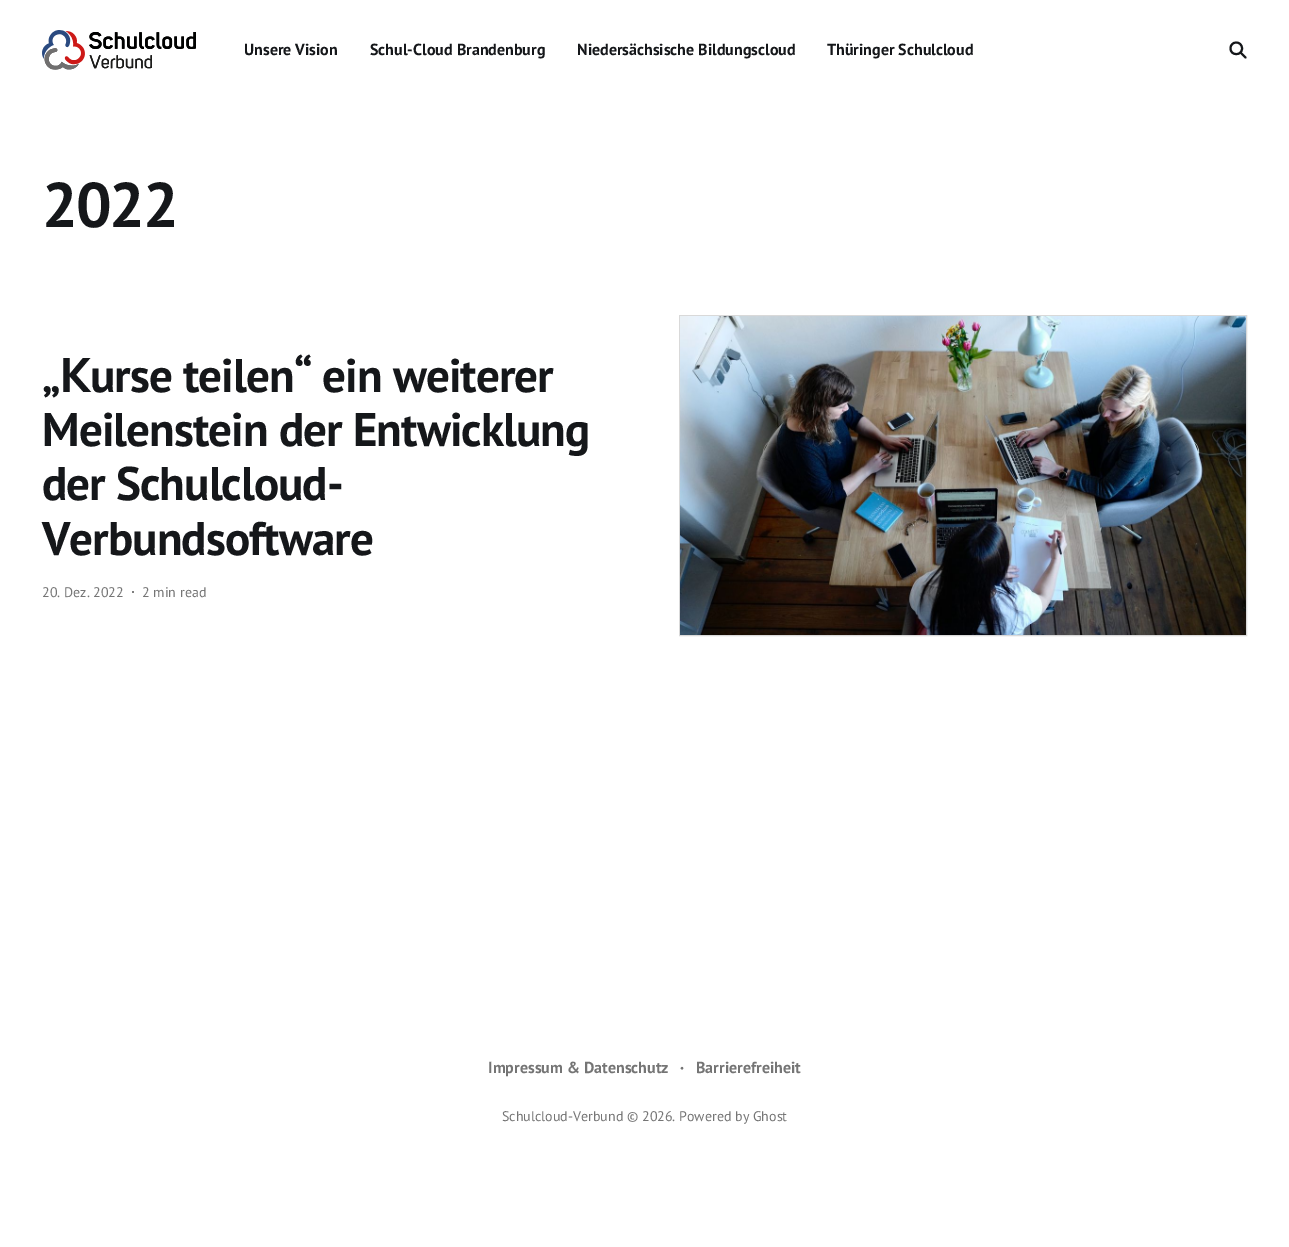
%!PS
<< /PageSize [1289 1247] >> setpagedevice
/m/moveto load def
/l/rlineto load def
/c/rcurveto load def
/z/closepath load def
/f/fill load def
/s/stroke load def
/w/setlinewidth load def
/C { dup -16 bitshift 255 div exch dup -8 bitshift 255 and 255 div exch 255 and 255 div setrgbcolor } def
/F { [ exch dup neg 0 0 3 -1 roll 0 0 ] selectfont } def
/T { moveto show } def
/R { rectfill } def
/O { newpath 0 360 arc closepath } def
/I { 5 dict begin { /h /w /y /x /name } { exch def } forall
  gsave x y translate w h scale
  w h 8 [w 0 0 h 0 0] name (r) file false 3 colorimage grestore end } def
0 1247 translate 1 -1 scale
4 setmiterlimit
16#FFFFFF C
0 0 1289 1247 R
(1.rgb) 42 30 154 40 I
/PTSans-Bold 16 F
16#15171A C
(Unsere Vision) 244 55 T
(Schul-Cloud Brandenburg) 370 55 T
(Niedersächsische Bildungscloud) 577 55 T
(Thüringer Schulcloud) 827 55 T
2 w
1 setlinecap
1 setlinejoin
1245.5 57.5 m -5 -5 l z 1242 48.5 m 0 7.5 -11.5 7.5 -11.5 0 c 0 -8 11.5 -8 11.5 0 c z s
/PTSans-Bold 63 F
42 227 m -2 0 (2022) ashow
/PTSans-Bold 47.1 F
42 392 m -.95 0 („) ashow
/Manrope-ExtraBold 47.1 F
60 392 m -.95 0 (Κ) ashow
/PTSans-Bold 47.1 F
90 392 m -.95 0 (urse teilen“ ein weiterer) ashow
42 446 m -.95 0 (Meilenstein der Entwicklung) ashow
42 500 m -.95 0 (der Schulcloud-) ashow
42 555 m -.95 0 (Verbundsoftware) ashow
/PTSans-Regular 14 F
16#757575 C
(20. Dez. 2022) 42 597 T
133 592 1 O f
(2 min read) 142 597 T
16#D9D9D9 C
1 w
0 setlinecap
0 setlinejoin
679.5 315.5 567 320 rectstroke
(2.rgb) 680 316 566 319 I
/PTSans-Bold 16 F
16#757575 C
(Impressum & Datenschutz) 488 1073 T
/PTSans-Bold 9 F
(•) 680 1071 T
/PTSans-Bold 16 F
(Barrierefreiheit) 696 1073 T
/PTSans-Regular 14 F
(Schulcloud-Verbund © 2026. Powered by Ghost) 502 1121 T
showpage
